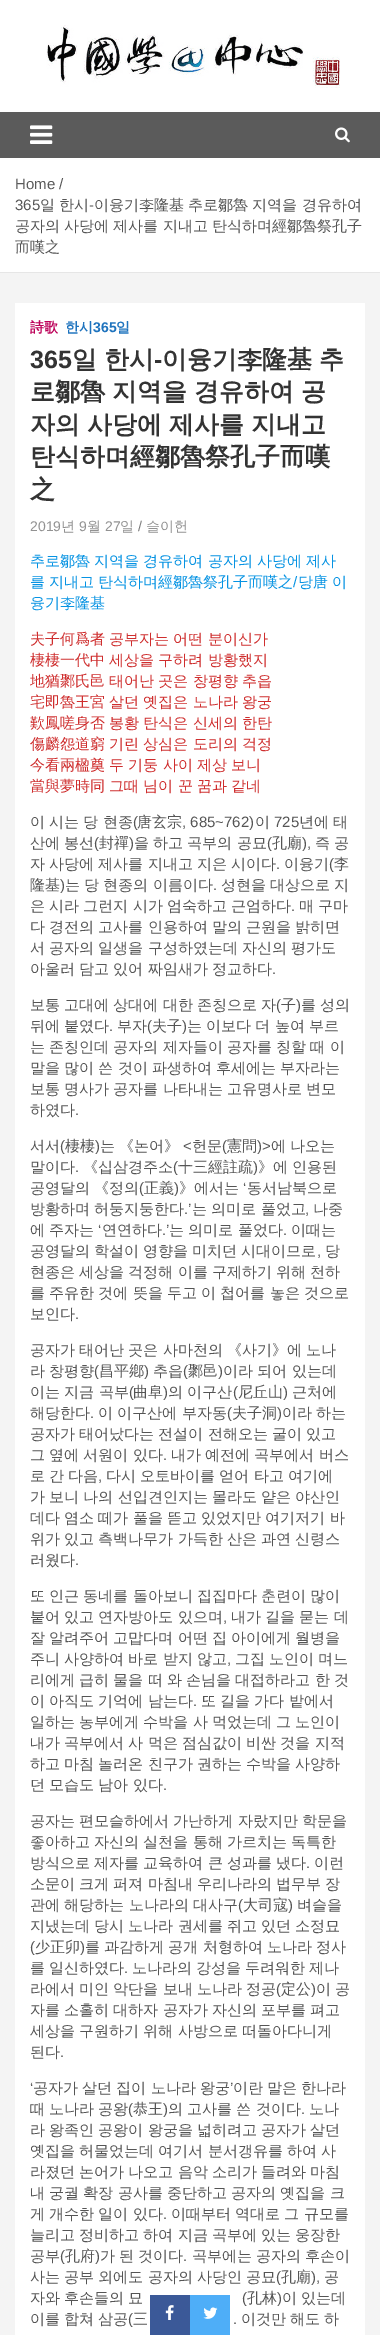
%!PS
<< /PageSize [380 2335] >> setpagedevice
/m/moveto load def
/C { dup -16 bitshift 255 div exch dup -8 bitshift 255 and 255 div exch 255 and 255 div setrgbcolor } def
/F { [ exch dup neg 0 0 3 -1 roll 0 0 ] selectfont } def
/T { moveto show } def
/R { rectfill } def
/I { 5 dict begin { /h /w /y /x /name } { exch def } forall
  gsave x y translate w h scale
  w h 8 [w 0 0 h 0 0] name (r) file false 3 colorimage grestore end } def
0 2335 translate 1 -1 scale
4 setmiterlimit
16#F4F4F4 C
0 0 380 2335 R
16#FFFFFF C
0 0 380 112 R
(1.rgb) 46 25 294 63 I
16#5B5B5B C
0 112 380 46 R
(2.rgb) 30 125 23 19 I
(3.rgb) 335 127 15 16 I
16#FFFFFF C
0 158 380 114 R
16#E6E6E6 C
0 272 380 1 R
/LiberationSans-Regular 15 F
16#5B5B5B C
(Home) 15 189 T
16#555555 C
(/) 59 189 T
(365) 15 210 T
/WenQuanYiZenHei-Medium 15 F
40 210 m -.25 0 32 (일 한시) widthshow
/LiberationSans-Regular 15 F
(-) 89 210 T
/WenQuanYiZenHei-Medium 15 F
94 210 m -.25 0 32 (이융기李隆基 추로鄒魯 지역을 경유하여) widthshow
15 231 m -.25 0 32 (공자의 사당에 제사를 지내고 탄식하며經鄒魯祭孔子) widthshow
(而嘆之) 15 252 T
16#FFFFFF C
15 303 350 2032 R
/WenQuanYiZenHei-Bold 14 F
16#BC0058 C
(詩歌) 30 332 T
16#1E73BE C
(한시) 65 332 T
/LiberationSans-Bold 14 F
(365) 93 332 T
/WenQuanYiZenHei-Bold 14 F
(일) 116 332 T
/LiberationSans-Bold 25 F
16#333333 C
(365) 30 368 T
/WenQuanYiZenHei-Bold 25 F
72 368 m -.5 0 32 (일 한시) widthshow
/LiberationSans-Bold 25 F
(-) 154 368 T
/WenQuanYiZenHei-Bold 25 F
162 368 m -.5 0 32 (이융기李隆基 추) widthshow
30 400 m -.5 0 32 (로鄒魯 지역을 경유하여 공) widthshow
30 433 m -.5 0 32 (자의 사당에 제사를 지내고) widthshow
(탄식하며經鄒魯祭孔子而嘆) 30 465 T
(之) 30 498 T
/LiberationSans-Regular 14 F
16#929292 C
(2019) 30 531 T
/WenQuanYiZenHei-Medium 14 F
(년) 61 531 T
/LiberationSans-Regular 14 F
(9) 79 531 T
/WenQuanYiZenHei-Medium 14 F
(월) 87 531 T
/LiberationSans-Regular 14 F
(27) 105 531 T
/WenQuanYiZenHei-Medium 14 F
(일) 120 531 T
/LiberationSans-Regular 14 F
16#777777 C
(/) 138 531 T
/WenQuanYiZenHei-Medium 14 F
16#929292 C
(슬이헌) 146 531 T
/WenQuanYiZenHei-Medium 15 F
16#0693E3 C
30 566 m -.25 0 32 (추로鄒魯 지역을 경유하여 공자의 사당에 제사) widthshow
30 587 m -.25 0 32 (를 지내고 탄식하며經鄒魯祭孔子而嘆之) widthshow
/LiberationSans-Regular 15 F
(/) 293 587 T
/WenQuanYiZenHei-Medium 15 F
298 587 m -.25 0 32 (당唐 이) widthshow
(융기李隆基) 30 608 T
16#CF2E2E C
30 644 m -.25 0 32 (夫子何爲者 공부자는 어떤 분이신가) widthshow
30 665 m -.25 0 32 (棲棲一代中 세상을 구하려 방황했지) widthshow
30 686 m -.25 0 32 (地猶鄹氏邑 태어난 곳은 창평향 추읍) widthshow
30 707 m -.25 0 32 (宅即魯王宮 살던 옛집은 노나라 왕궁) widthshow
30 728 m -.25 0 32 (歎鳳嗟身否 봉황 탄식은 신세의 한탄) widthshow
30 749 m -.25 0 32 (傷麟怨道窮 기린 상심은 도리의 걱정) widthshow
30 770 m -.25 0 32 (今看兩楹奠 두 기둥 사이 제상 보니) widthshow
30 791 m -.25 0 32 (當與夢時同 그때 님이 꾼 꿈과 같네) widthshow
16#555555 C
(이) 30 827 T
(시는) 49 827 T
(당) 83 827 T
(현종) 103 827 T
/LiberationSans-Regular 15 F
(\() 133 827 T
/WenQuanYiZenHei-Medium 15 F
(唐玄宗) 137 827 T
/LiberationSans-Regular 15 F
(, 685~762\)) 182 827 T
/WenQuanYiZenHei-Medium 15 F
(이) 255 827 T
/LiberationSans-Regular 15 F
(725) 274 827 T
/WenQuanYiZenHei-Medium 15 F
(년에) 299 827 T
(태) 333 827 T
30 848 m -.25 0 32 (산에 봉선) widthshow
/LiberationSans-Regular 15 F
(\() 94 848 T
/WenQuanYiZenHei-Medium 15 F
(封禪) 99 848 T
/LiberationSans-Regular 15 F
(\)) 129 848 T
/WenQuanYiZenHei-Medium 15 F
134 848 m -.25 0 32 (을 하고 곡부의 공묘) widthshow
/LiberationSans-Regular 15 F
(\() 267 848 T
/WenQuanYiZenHei-Medium 15 F
(孔廟) 272 848 T
/LiberationSans-Regular 15 F
(\),) 302 848 T
/WenQuanYiZenHei-Medium 15 F
315 848 m -.25 0 32 (즉 공) widthshow
30 869 m -.25 0 32 (자 사당에 제사를 지내고 지은 시이다) widthshow
/LiberationSans-Regular 15 F
(.) 276 869 T
/WenQuanYiZenHei-Medium 15 F
(이융기) 284 869 T
/LiberationSans-Regular 15 F
(\() 329 869 T
/WenQuanYiZenHei-Medium 15 F
(李) 334 869 T
(隆基) 30 890 T
/LiberationSans-Regular 15 F
(\)) 60 890 T
/WenQuanYiZenHei-Medium 15 F
65 890 m -.25 0 32 (는 당 현종의 이름이다) widthshow
/LiberationSans-Regular 15 F
(.) 213 890 T
/WenQuanYiZenHei-Medium 15 F
221 890 m -.25 0 32 (성현을 대상으로 지) widthshow
30 911 m -.25 0 32 (은 시라 그런지 시가 엄숙하고 근엄하다) widthshow
/LiberationSans-Regular 15 F
(.) 291 911 T
/WenQuanYiZenHei-Medium 15 F
299 911 m -.25 0 32 (매 구마) widthshow
30 932 m -.25 0 32 (다 경전의 고사를 인용하여 말의 근원을 밝히면) widthshow
30 953 m -.25 0 32 (서 공자의 일생을 구성하였는데 자신의 평가도) widthshow
30 974 m -.25 0 32 (아울러 담고 있어 짜임새가 정교하다) widthshow
/LiberationSans-Regular 15 F
(.) 272 974 T
/WenQuanYiZenHei-Medium 15 F
30 1010 m -.25 0 32 (보통 고대에 상대에 대한 존칭으로 자) widthshow
/LiberationSans-Regular 15 F
(\() 276 1010 T
/WenQuanYiZenHei-Medium 15 F
(子) 281 1010 T
/LiberationSans-Regular 15 F
(\)) 296 1010 T
/WenQuanYiZenHei-Medium 15 F
301 1010 m -.25 0 32 (를 성의) widthshow
30 1031 m -.25 0 32 (뒤에 붙였다) widthshow
/LiberationSans-Regular 15 F
(.) 109 1031 T
/WenQuanYiZenHei-Medium 15 F
(부자) 117 1031 T
/LiberationSans-Regular 15 F
(\() 147 1031 T
/WenQuanYiZenHei-Medium 15 F
(夫子) 152 1031 T
/LiberationSans-Regular 15 F
(\)) 182 1031 T
/WenQuanYiZenHei-Medium 15 F
187 1031 m -.25 0 32 (는 이보다 더 높여 부르) widthshow
30 1052 m -.25 0 32 (는 존칭인데 공자의 제자들이 공자를 칭할 때 이) widthshow
30 1073 m -.25 0 32 (말을 많이 쓴 것이 파생하여 후세에는 부자라는) widthshow
30 1094 m -.25 0 32 (보통 명사가 공자를 나타내는 고유명사로 변모) widthshow
(하였다) 30 1115 T
/LiberationSans-Regular 15 F
(.) 75 1115 T
/WenQuanYiZenHei-Medium 15 F
(서서) 30 1151 T
/LiberationSans-Regular 15 F
(\() 60 1151 T
/WenQuanYiZenHei-Medium 15 F
(棲棲) 65 1151 T
/LiberationSans-Regular 15 F
(\)) 95 1151 T
/WenQuanYiZenHei-Medium 15 F
(는 《논어》) 100 1151 T
/LiberationSans-Regular 15 F
(<) 183 1151 T
/WenQuanYiZenHei-Medium 15 F
(헌문) 192 1151 T
/LiberationSans-Regular 15 F
(\() 222 1151 T
/WenQuanYiZenHei-Medium 15 F
(憲問) 227 1151 T
/LiberationSans-Regular 15 F
(\)>) 257 1151 T
/WenQuanYiZenHei-Medium 15 F
(에 나오는) 271 1151 T
(말이다) 30 1172 T
/LiberationSans-Regular 15 F
(.) 75 1172 T
/WenQuanYiZenHei-Medium 15 F
(《십삼경주소) 83 1172 T
/LiberationSans-Regular 15 F
(\() 173 1172 T
/WenQuanYiZenHei-Medium 15 F
(十三經註疏) 178 1172 T
/LiberationSans-Regular 15 F
(\)) 253 1172 T
/WenQuanYiZenHei-Medium 15 F
(》에 인용된) 258 1172 T
(공영달의 《정의) 30 1193 T
/LiberationSans-Regular 15 F
(\() 139 1193 T
/WenQuanYiZenHei-Medium 15 F
(正義) 144 1193 T
/LiberationSans-Regular 15 F
(\)) 174 1193 T
/WenQuanYiZenHei-Medium 15 F
(》에서는) 179 1193 T
/LiberationSans-Regular 15 F
(‘) 243 1193 T
/WenQuanYiZenHei-Medium 15 F
(동서남북으로) 247 1193 T
(방황하며 허둥지둥한다) 30 1214 T
/LiberationSans-Regular 15 F
(.’) 184 1214 T
/WenQuanYiZenHei-Medium 15 F
(는 의미로 풀었고) 192 1214 T
/LiberationSans-Regular 15 F
(,) 305 1214 T
/WenQuanYiZenHei-Medium 15 F
(나중) 313 1214 T
(에 주자는) 30 1235 T
/LiberationSans-Regular 15 F
(‘) 98 1235 T
/WenQuanYiZenHei-Medium 15 F
(연연하다) 102 1235 T
/LiberationSans-Regular 15 F
(.’) 162 1235 T
/WenQuanYiZenHei-Medium 15 F
(는 의미로 풀었다) 169 1235 T
/LiberationSans-Regular 15 F
(.) 283 1235 T
/WenQuanYiZenHei-Medium 15 F
(이때는) 291 1235 T
30 1256 m -.5 0 32 (공영달의 학설이 영향을 미치던 시대이므로) widthshow
/LiberationSans-Regular 15 F
(,) 317 1256 T
/WenQuanYiZenHei-Medium 15 F
(당) 325 1256 T
30 1277 m -.25 0 32 (현종은 세상을 걱정해 이를 구제하기 위해 천하) widthshow
30 1298 m -.25 0 32 (를 주유한 것에 뜻을 두고 이 첩어를 놓은 것으로) widthshow
(보인다) 30 1319 T
/LiberationSans-Regular 15 F
(.) 75 1319 T
/WenQuanYiZenHei-Medium 15 F
30 1355 m -.25 0 32 (공자가 태어난 곳은 사마천의 《사기》에 노나) widthshow
(라 창평향) 30 1376 T
/LiberationSans-Regular 15 F
(\() 94 1376 T
/WenQuanYiZenHei-Medium 15 F
(昌平鄕) 99 1376 T
/LiberationSans-Regular 15 F
(\)) 144 1376 T
/WenQuanYiZenHei-Medium 15 F
(추읍) 153 1376 T
/LiberationSans-Regular 15 F
(\() 183 1376 T
/WenQuanYiZenHei-Medium 15 F
(鄹邑) 188 1376 T
/LiberationSans-Regular 15 F
(\)) 218 1376 T
/WenQuanYiZenHei-Medium 15 F
(이라 되어 있는데) 223 1376 T
(이는 지금 곡부) 30 1397 T
/LiberationSans-Regular 15 F
(\() 129 1397 T
/WenQuanYiZenHei-Medium 15 F
(曲阜) 133 1397 T
/LiberationSans-Regular 15 F
(\)) 163 1397 T
/WenQuanYiZenHei-Medium 15 F
(의 이구산) 168 1397 T
/LiberationSans-Regular 15 F
(\() 233 1397 T
/WenQuanYiZenHei-Medium 15 F
(尼丘山) 238 1397 T
/LiberationSans-Regular 15 F
(\)) 283 1397 T
/WenQuanYiZenHei-Medium 15 F
(근처에) 292 1397 T
(해당한다) 30 1418 T
/LiberationSans-Regular 15 F
(.) 90 1418 T
/WenQuanYiZenHei-Medium 15 F
(이 이구산에 부자동) 98 1418 T
/LiberationSans-Regular 15 F
(\() 227 1418 T
/WenQuanYiZenHei-Medium 15 F
(夫子洞) 232 1418 T
/LiberationSans-Regular 15 F
(\)) 277 1418 T
/WenQuanYiZenHei-Medium 15 F
(이라 하는) 282 1418 T
30 1439 m -.25 0 32 (공자가 태어났다는 전설이 전해오는 굴이 있고) widthshow
30 1460 m -.25 0 32 (그 옆에 서원이 있다) widthshow
/LiberationSans-Regular 15 F
(.) 163 1460 T
/WenQuanYiZenHei-Medium 15 F
171 1460 m -.25 0 32 (내가 예전에 곡부에서 버스) widthshow
30 1481 m -.25 0 32 (로 간 다음) widthshow
/LiberationSans-Regular 15 F
(,) 98 1481 T
/WenQuanYiZenHei-Medium 15 F
106 1481 m -.25 0 32 (다시 오토바이를 얻어 타고 여기에) widthshow
30 1502 m -.25 0 32 (가 보니 나의 선입견인지는 몰라도 얕은 야산인) widthshow
30 1523 m -.25 0 32 (데다 염소 떼가 풀을 뜯고 있었지만 여기저기 바) widthshow
30 1544 m -.25 0 32 (위가 있고 측백나무가 가득한 산은 과연 신령스) widthshow
(러웠다) 30 1565 T
/LiberationSans-Regular 15 F
(.) 75 1565 T
/WenQuanYiZenHei-Medium 15 F
30 1601 m -.25 0 32 (또 인근 동네를 돌아보니 집집마다 춘련이 많이) widthshow
30 1622 m -.25 0 32 (붙어 있고 연자방아도 있으며) widthshow
/LiberationSans-Regular 15 F
(,) 223 1622 T
/WenQuanYiZenHei-Medium 15 F
231 1622 m -.25 0 32 (내가 길을 묻는 데) widthshow
30 1643 m -.25 0 32 (잘 알려주어 고맙다며 어떤 집 아이에게 월병을) widthshow
30 1664 m -.25 0 32 (주니 사양하여 바로 받지 않고) widthshow
/LiberationSans-Regular 15 F
(,) 227 1664 T
/WenQuanYiZenHei-Medium 15 F
235 1664 m -.25 0 32 (그집 노인이 며느) widthshow
30 1685 m -.25 0 32 (리에게 급히 물을 떠 와 손님을 대접하라고 한 것) widthshow
30 1706 m -.25 0 32 (이 아직도 기억에 남는다) widthshow
/LiberationSans-Regular 15 F
(.) 193 1706 T
/WenQuanYiZenHei-Medium 15 F
201 1706 m -.25 0 32 (또 길을 가다 밭에서) widthshow
30 1727 m -.25 0 32 (일하는 농부에게 수박을 사 먹었는데 그 노인이) widthshow
30 1748 m -.25 0 32 (내가 곡부에서 사 먹은 점심값이 비싼 것을 지적) widthshow
30 1769 m -.25 0 32 (하고 마침 놀러온 친구가 권하는 수박을 사양하) widthshow
30 1790 m -.25 0 32 (던 모습도 남아 있다) widthshow
/LiberationSans-Regular 15 F
(.) 163 1790 T
/WenQuanYiZenHei-Medium 15 F
30 1826 m -.25 0 32 (공자는 편모슬하에서 가난하게 자랐지만 학문을) widthshow
30 1847 m -.25 0 32 (좋아하고 자신의 실천을 통해 가르치는 독특한) widthshow
30 1868 m -.25 0 32 (방식으로 제자를 교육하여 큰 성과를 냈다) widthshow
/LiberationSans-Regular 15 F
(.) 306 1868 T
/WenQuanYiZenHei-Medium 15 F
(이런) 314 1868 T
30 1889 m -.25 0 32 (소문이 크게 퍼져 마침내 우리나라의 법무부 장) widthshow
(관에 해당하는 노나라의 대사구) 30 1910 T
/LiberationSans-Regular 15 F
(\() 238 1910 T
/WenQuanYiZenHei-Medium 15 F
(大司寇) 243 1910 T
/LiberationSans-Regular 15 F
(\)) 288 1910 T
/WenQuanYiZenHei-Medium 15 F
(벼슬을) 297 1910 T
30 1931 m -.25 0 32 (지냈는데 당시 노나라 권세를 쥐고 있던 소정묘) widthshow
/LiberationSans-Regular 15 F
(\() 30 1952 T
/WenQuanYiZenHei-Medium 15 F
(少正卯) 35 1952 T
/LiberationSans-Regular 15 F
(\)) 80 1952 T
/WenQuanYiZenHei-Medium 15 F
85 1952 m -.25 0 32 (를 과감하게 공개 처형하여 노나라 정사) widthshow
30 1973 m -.5 0 32 (를 일신하였다) widthshow
/LiberationSans-Regular 15 F
(.) 124 1973 T
/WenQuanYiZenHei-Medium 15 F
132 1973 m -.5 0 32 (노나라의 강성을 두려워한 제나) widthshow
30 1994 m -.25 0 32 (라에서 미인 악단을 보내 노나라 정공) widthshow
/LiberationSans-Regular 15 F
(\() 276 1994 T
/WenQuanYiZenHei-Medium 15 F
(定公) 281 1994 T
/LiberationSans-Regular 15 F
(\)) 311 1994 T
/WenQuanYiZenHei-Medium 15 F
316 1994 m -.25 0 32 (이 공) widthshow
30 2015 m -.25 0 32 (자를 소홀히 대하자 공자가 자신의 포부를 펴고) widthshow
30 2036 m -.25 0 32 (세상을 구원하기 위해 사방으로 떠돌아다니게) widthshow
(된다) 30 2057 T
/LiberationSans-Regular 15 F
(.) 60 2057 T
(‘) 30 2093 T
/WenQuanYiZenHei-Medium 15 F
33 2093 m -.25 0 32 (공자가 살던 집이 노나라 왕궁) widthshow
/LiberationSans-Regular 15 F
(’) 230 2093 T
/WenQuanYiZenHei-Medium 15 F
233 2093 m -.25 0 32 (이란 말은 한나라) widthshow
30 2114 m -.25 0 32 (때 노나라 공왕) widthshow
/LiberationSans-Regular 15 F
(\() 128 2114 T
/WenQuanYiZenHei-Medium 15 F
(恭王) 133 2114 T
/LiberationSans-Regular 15 F
(\)) 163 2114 T
/WenQuanYiZenHei-Medium 15 F
168 2114 m -.25 0 32 (의 고사를 쓴 것이다) widthshow
/LiberationSans-Regular 15 F
(.) 301 2114 T
/WenQuanYiZenHei-Medium 15 F
(노나) 309 2114 T
30 2135 m -.25 0 32 (라 왕족인 공왕이 왕궁을 넓히려고 공자가 살던) widthshow
30 2156 m -.25 0 32 (옛집을 허물었는데 여기서 분서갱유를 하여 사) widthshow
30 2177 m -.25 0 32 (라졌던 논어가 나오고 음악 소리가 들려와 마침) widthshow
30 2198 m -.25 0 32 (내 궁궐 확장 공사를 중단하고 공자의 옛집을 크) widthshow
30 2219 m -.25 0 32 (게 개수한 일이 있다) widthshow
/LiberationSans-Regular 15 F
(.) 163 2219 T
/WenQuanYiZenHei-Medium 15 F
171 2219 m -.25 0 32 (이때부터 역대로 그 규모를) widthshow
30 2240 m -.25 0 32 (늘리고 정비하고 하여 지금 곡부에 있는 웅장한) widthshow
(공부) 30 2261 T
/LiberationSans-Regular 15 F
(\() 60 2261 T
/WenQuanYiZenHei-Medium 15 F
(孔府) 65 2261 T
/LiberationSans-Regular 15 F
(\)) 95 2261 T
/WenQuanYiZenHei-Medium 15 F
100 2261 m -.5 0 32 (가 된 것이다) widthshow
/LiberationSans-Regular 15 F
(.) 183 2261 T
/WenQuanYiZenHei-Medium 15 F
192 2261 m -.5 0 32 (곡부에는 공자의 후손이) widthshow
30 2282 m -.25 0 32 (사는 공부 외에도 공자의 사당인 공묘) widthshow
/LiberationSans-Regular 15 F
(\() 276 2282 T
/WenQuanYiZenHei-Medium 15 F
(孔廟) 281 2282 T
/LiberationSans-Regular 15 F
(\),) 311 2282 T
/WenQuanYiZenHei-Medium 15 F
(공) 324 2282 T
30 2303 m -.25 0 32 (자와 후손들의 묘) widthshow
/LiberationSans-Regular 15 F
(\() 242 2303 T
/WenQuanYiZenHei-Medium 15 F
(孔林) 247 2303 T
/LiberationSans-Regular 15 F
(\)) 277 2303 T
/WenQuanYiZenHei-Medium 15 F
282 2303 m -.25 0 32 (이 있는데) widthshow
30 2324 m -.25 0 32 (이를 합쳐 삼공) widthshow
/LiberationSans-Regular 15 F
(\() 128 2324 T
/WenQuanYiZenHei-Medium 15 F
(三) 133 2324 T
/LiberationSans-Regular 15 F
(.) 233 2324 T
/WenQuanYiZenHei-Medium 15 F
241 2324 m -.25 0 32 (이것만 해도 하) widthshow
16#3B5998 C
150 2295 40 40 R
(4.rgb) 165 2305 9 15 I
16#4EAEF8 C
190 2295 40 40 R
(5.rgb) 203 2307 15 12 I
showpage
